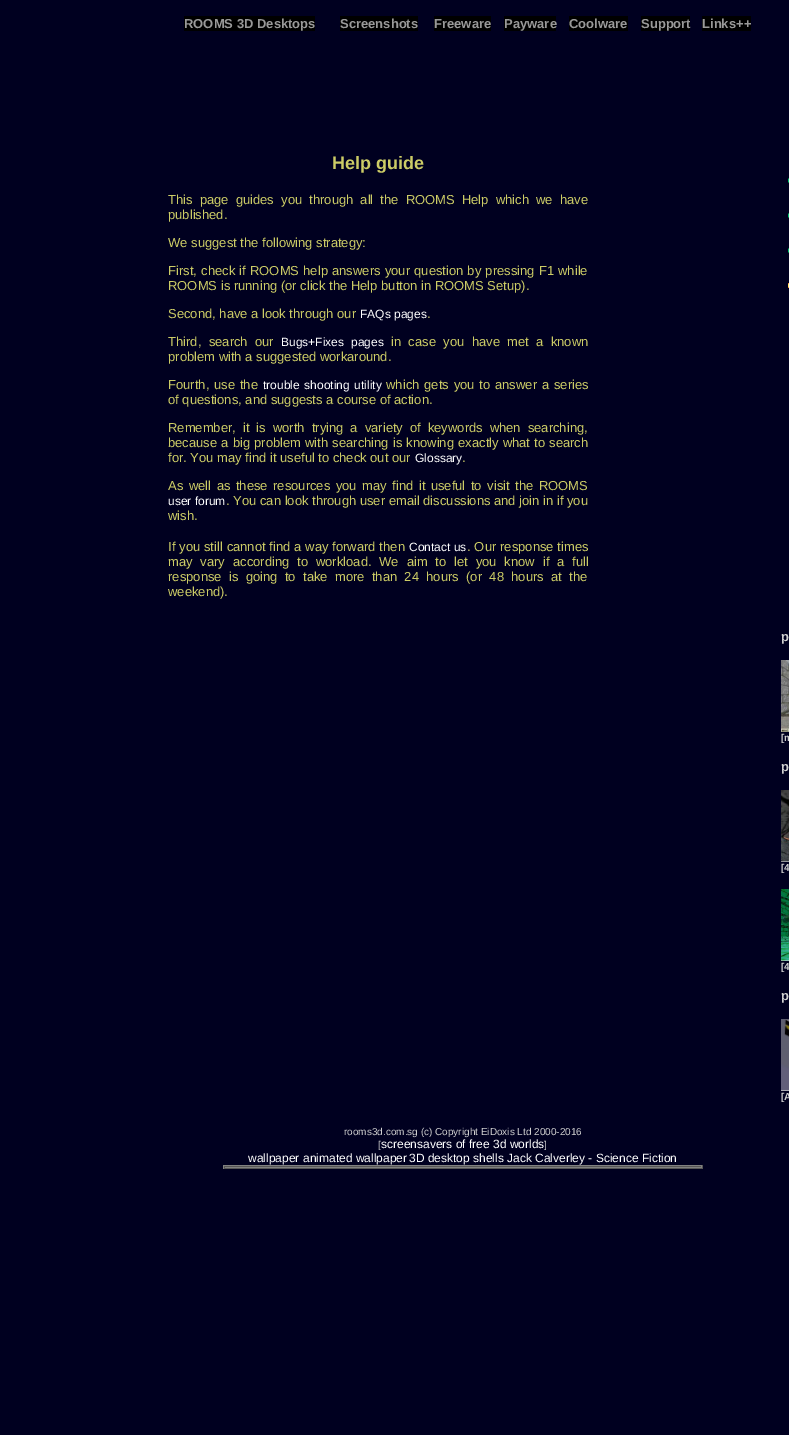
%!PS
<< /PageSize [789 1435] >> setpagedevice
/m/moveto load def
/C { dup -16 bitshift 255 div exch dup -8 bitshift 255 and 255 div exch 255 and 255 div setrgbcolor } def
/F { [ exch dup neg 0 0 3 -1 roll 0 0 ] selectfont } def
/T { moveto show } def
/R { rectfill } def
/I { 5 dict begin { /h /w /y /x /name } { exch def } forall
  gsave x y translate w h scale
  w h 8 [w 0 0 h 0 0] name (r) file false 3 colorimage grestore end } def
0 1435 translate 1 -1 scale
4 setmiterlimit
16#000020 C
0 0 789 1435 R
16#000000 C
184 16 131 15 R
/LiberationSans-Bold 13 F
16#999999 C
(ROOMS 3D Desktops) 184 28 T
16#000000 C
340 16 78 15 R
16#999999 C
(Screenshots) 340 28 T
16#000000 C
434 16 57 15 R
16#999999 C
(Freeware) 434 28 T
16#000000 C
504 16 52 15 R
16#999999 C
(Payware) 504 28 T
16#000000 C
569 16 59 15 R
16#999999 C
(Coolware) 569 28 T
16#000000 C
641 16 49 15 R
16#999999 C
(Support) 641 28 T
16#000000 C
702 16 49 15 R
16#999999 C
(Links++) 702 28 T
/LiberationSans-Bold 18 F
16#CCCC66 C
(Help guide) 332 169 T
/LiberationSans-Regular 13 F
168 204 m 3.5 0 32 (This page guides you through all the ROOMS Help which we have) widthshow
(published.) 168 219 T
(We suggest the following strategy:) 168 247 T
168 275 m .6 0 32 (First, check if ROOMS help answers your question by pressing F1 while) widthshow
(ROOMS is running \(or click the Help button in ROOMS Setup\).) 168 290 T
(Second, have a look through our) 168 318 T
/LiberationSans-Regular 12 F
16#FFFFFF C
(FAQs pages) 360 318 T
/LiberationSans-Regular 13 F
16#CCCC66 C
(.) 427 318 T
168 346 m 3.75 0 32 (Third, search our) widthshow
/LiberationSans-Regular 12 F
16#FFFFFF C
281 346 m 3.75 0 32 (Bugs+Fixes pages) widthshow
/LiberationSans-Regular 13 F
16#CCCC66 C
391 346 m 3.75 0 32 (in case you have met a known) widthshow
(problem with a suggested workaround.) 168 361 T
168 389 m 1.25 0 32 (Fourth, use the) widthshow
/LiberationSans-Regular 12 F
16#FFFFFF C
263 389 m 1.25 0 32 (trouble shooting utility) widthshow
/LiberationSans-Regular 13 F
16#CCCC66 C
386 389 m 1.25 0 32 (which gets you to answer a series) widthshow
(of questions, and suggests a course of action.) 168 404 T
168 432 m 3.4 0 32 (Remember, it is worth trying a variety of keywords when searching,) widthshow
168 447 m .5 0 32 (because a big problem with searching is knowing exactly what to search) widthshow
(for. You may find it useful to check out our) 168 462 T
/LiberationSans-Regular 12 F
16#FFFFFF C
(Glossary) 415 462 T
/LiberationSans-Regular 13 F
16#CCCC66 C
(.) 462 462 T
168 490 m 1.9 0 32 (As well as these resources you may find it useful to visit the ROOMS) widthshow
/LiberationSans-Regular 12 F
16#FFFFFF C
(user forum) 168 505 T
/LiberationSans-Regular 13 F
16#CCCC66 C
(. You can look through user email discussions and join in if you) 226 505 T
(wish.) 168 520 T
168 551 m .25 0 32 (If you still cannot find a way forward then) widthshow
/LiberationSans-Regular 12 F
16#FFFFFF C
(Contact us) 409 551 T
/LiberationSans-Regular 13 F
16#CCCC66 C
467 551 m .25 0 32 (. Our response times) widthshow
168 566 m 4.25 0 32 (may vary according to workload. We aim to let you know if a full) widthshow
168 581 m 3.75 0 32 (response is going to take more than 24 hours \(or 48 hours at the) widthshow
(weekend\).) 168 596 T
(1.rgb) 788 178 1 5 I
(1.rgb) 788 213 1 5 I
(1.rgb) 788 248 1 5 I
(2.rgb) 788 283 1 5 I
/LiberationSans-Bold 13 F
16#D0D0D0 C
(p) 781 641 T
(3.rgb) 781 660 8 72 I
/LiberationSans-Bold 10 F
([m) 781 741 T
/LiberationSans-Bold 13 F
(p) 781 771 T
(4.rgb) 781 790 8 72 I
/LiberationSans-Bold 10 F
([4) 781 871 T
(5.rgb) 781 889 8 72 I
([4) 781 970 T
/LiberationSans-Bold 13 F
(p) 781 1000 T
(6.rgb) 781 1019 8 72 I
/LiberationSans-Bold 10 F
([A) 781 1100 T
/LiberationSans-Regular 10 F
(rooms3d.com.sg \(c\) Copyright EiDoxis Ltd 2000-2016) 344 1135 T
([) 378 1148 T
/LiberationSans-Regular 12 F
16#FFFFFF C
(screensavers of free 3d worlds) 381 1148 T
/LiberationSans-Regular 10 F
16#D0D0D0 C
(]) 544 1148 T
/LiberationSans-Regular 12 F
16#FFFFFF C
(wallpaper) 248 1162 T
(animated wallpaper) 303 1162 T
(3D desktop shells) 409 1162 T
(Jack Calverley - Science Fiction) 507 1162 T
16#808080 C
223 1165 480 1 R
16#555555 C
702 1165 1 4 R
223 1168 480 1 R
16#808080 C
223 1165 1 4 R
16#555555 C
224 1166 478 1 R
16#808080 C
701 1166 1 2 R
224 1167 478 1 R
16#555555 C
224 1166 1 2 R
showpage
